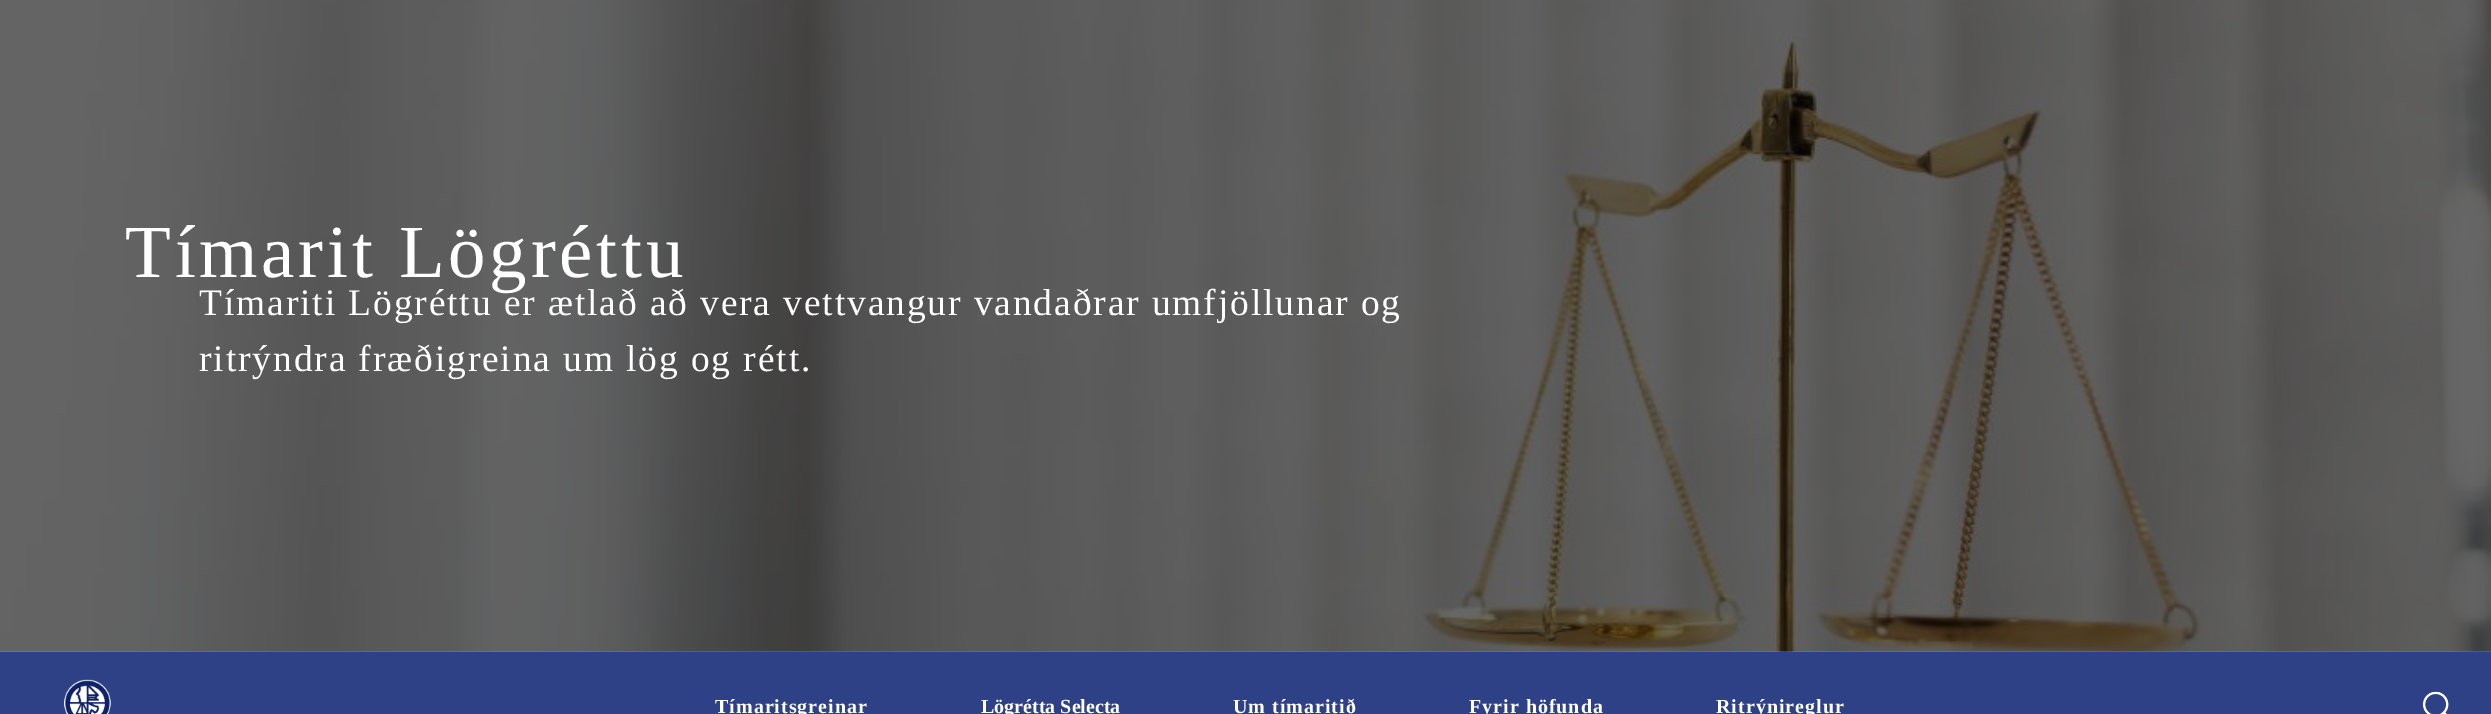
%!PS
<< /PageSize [2491 714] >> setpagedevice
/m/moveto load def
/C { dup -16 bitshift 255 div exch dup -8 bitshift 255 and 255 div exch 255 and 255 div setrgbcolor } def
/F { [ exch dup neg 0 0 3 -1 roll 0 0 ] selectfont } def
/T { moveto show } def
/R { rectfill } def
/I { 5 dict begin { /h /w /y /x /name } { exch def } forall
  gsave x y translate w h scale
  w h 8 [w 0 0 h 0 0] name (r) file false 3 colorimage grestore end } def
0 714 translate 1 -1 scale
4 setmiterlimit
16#2E4187 C
0 0 2491 714 R
(1.rgb) 0 0 2491 652 I
/LiberationSerif-Regular 75 F
16#FFFFFF C
125 277 m 3.75 0 (Tímarit Lögréttu) ashow
/LiberationSerif-Regular 37.5 F
199 315 m 1.88 0 (Tímariti Lögréttu er ætlað að vera vettvangur vandaðrar umfjöllunar og) ashow
199 371 m 1.88 0 (ritrýndra fræðigreina um lög og rétt.) ashow
(2.rgb) 64 679 47 35 I
/LiberationSerif-Bold 20 F
715 713 m 1 0 (Tímaritsgreinar) ashow
(Lögrétta Selecta) 981 713 T
1233 713 m 1 0 (Um tímaritið) ashow
1469 713 m 1 0 (Fyrir höfunda) ashow
1716 713 m 1 0 (Ritrýnireglur) ashow
(3.rgb) 2422 691 27 23 I
showpage
